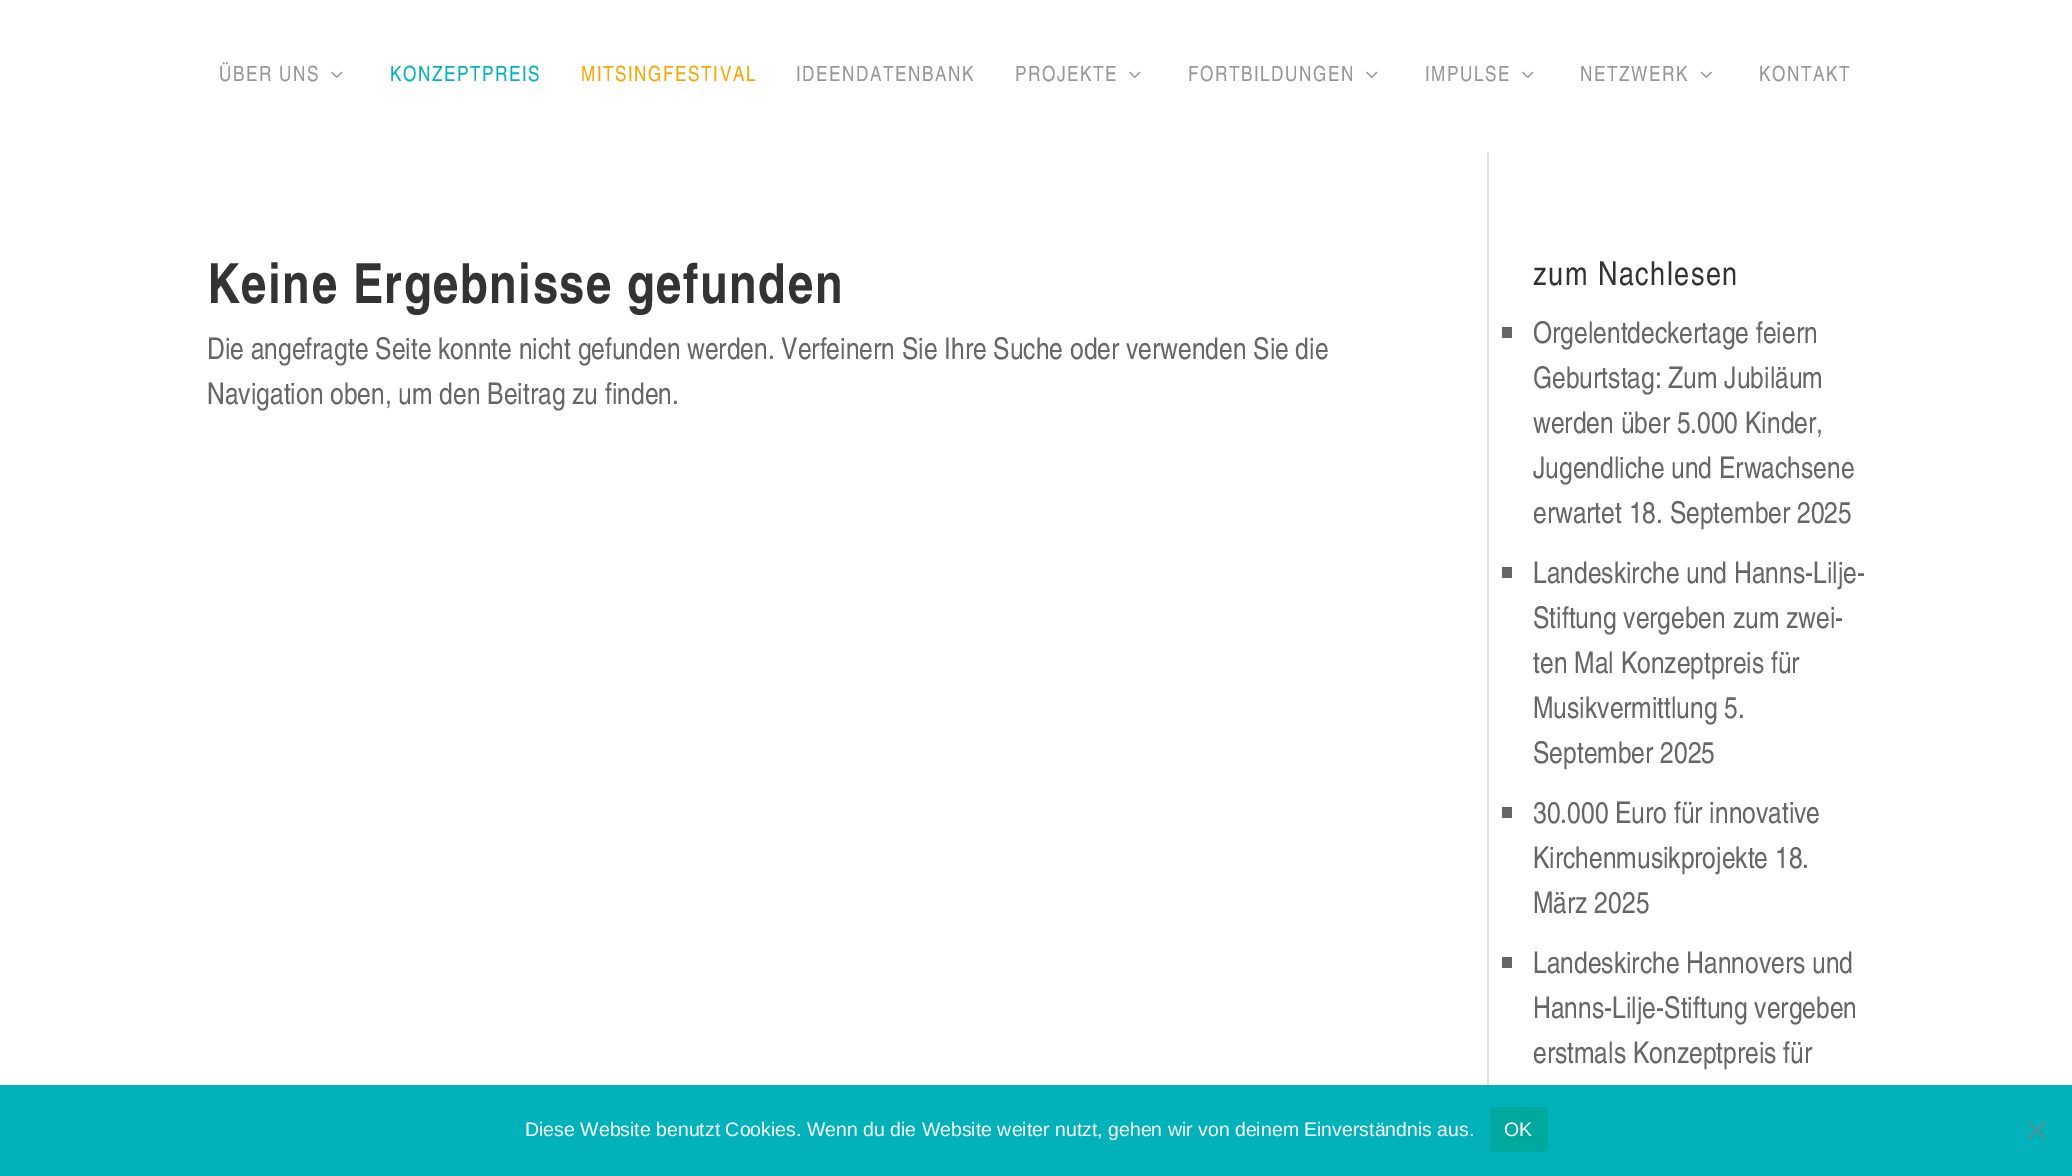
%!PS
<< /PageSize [2072 1176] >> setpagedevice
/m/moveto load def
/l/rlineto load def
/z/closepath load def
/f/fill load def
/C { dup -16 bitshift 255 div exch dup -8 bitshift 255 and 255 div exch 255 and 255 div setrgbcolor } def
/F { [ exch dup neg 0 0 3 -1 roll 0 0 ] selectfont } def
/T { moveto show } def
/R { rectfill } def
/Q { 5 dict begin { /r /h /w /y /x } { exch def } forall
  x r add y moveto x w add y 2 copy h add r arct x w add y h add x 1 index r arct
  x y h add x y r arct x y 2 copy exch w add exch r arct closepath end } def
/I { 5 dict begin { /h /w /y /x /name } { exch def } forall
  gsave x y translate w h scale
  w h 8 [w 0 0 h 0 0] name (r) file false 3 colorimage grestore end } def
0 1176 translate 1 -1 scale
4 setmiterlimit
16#FFFFFF C
0 0 2072 1176 R
/TeXGyreHerosCn-Regular 21 F
16#979797 C
219 81 m 1.5 0 (ÜBER UNS) ashow
(1.rgb) 331 71 12 7 I
16#01B2BB C
390 81 m 1.5 0 (KONZEPTPREIS) ashow
16#F7A600 C
581 81 m 1.5 0 (MITSINGFESTIVAL) ashow
16#979797 C
796 81 m 1.5 0 (IDEENDATENBANK) ashow
1015 81 m 1.5 0 (PROJEKTE) ashow
(1.rgb) 1129 71 12 7 I
1188 81 m 1.5 0 (FORTBILDUNGEN) ashow
(1.rgb) 1366 71 12 7 I
1425 81 m 1.5 0 (IMPULSE) ashow
(1.rgb) 1522 71 12 7 I
1580 81 m 1.5 0 (NETZWERK) ashow
(2.rgb) 1700 71 12 7 I
1759 81 m 1.5 0 (KONTAKT) ashow
16#E2E2E2 C
1487 152 2 933 R
/TeXGyreHerosCn-Bold 55.5 F
16#333333 C
207 303 m 1.5 0 (Keine Ergebnisse gefunden) ashow
/TeXGyreHerosCn-Regular 30 F
16#666666 C
(Die angefragte Seite konnte nicht gefunden werden. Verfeinern Sie Ihre Suche oder verwenden Sie die) 207 359 T
(Navigation oben, um den Beitrag zu finden.) 207 404 T
/TeXGyreHerosCn-Regular 33 F
16#333333 C
1533 285 m 1.5 0 (zum Nachlesen) ashow
16#666666 C
1502 327 10 11 R
/TeXGyreHerosCn-Regular 30 F
(Orgelentdeckertage feiern) 1533 343 T
(Geburtstag: Zum Jubiläum) 1533 388 T
(werden über 5.000 Kinder,) 1533 433 T
(Jugendliche und Erwachsene) 1533 478 T
(erwartet 18. September 2025) 1533 523 T
1502 567 10 11 R
(Landeskirche und Hanns-Lilje-) 1533 583 T
(Stiftung vergeben zum zwei-) 1533 628 T
(ten Mal Konzeptpreis für) 1533 673 T
(Musikvermittlung 5.) 1533 718 T
(September 2025) 1533 763 T
1502 807 10 11 R
(30.000 Euro für innovative) 1533 823 T
(Kirchenmusikprojekte 18.) 1533 868 T
(März 2025) 1533 913 T
1502 957 10 11 R
(Landeskirche Hannovers und) 1533 973 T
(Hanns-Lilje-Stiftung vergeben) 1533 1018 T
(erstmals Konzeptpreis für) 1533 1063 T
16#01B2BB C
0 1085 2072 91 R
/LiberationSans-Regular 19.5 F
16#FFFFFF C
(Diese Website benutzt Cookies. Wenn du die Website weiter nutzt, gehen wir von deinem Einverständnis aus.) 525 1136 T
16#00A99D C
1490 1107 58 45 5 Q f
16#FFFFFF C
(OK) 1504 1136 T
16#41999E C
2044 1121.5 m 2 2 l -16 16 l -2 -2 l z f
2028 1123.5 m 2 -2 l 16 16 l -2 2 l z f
showpage
